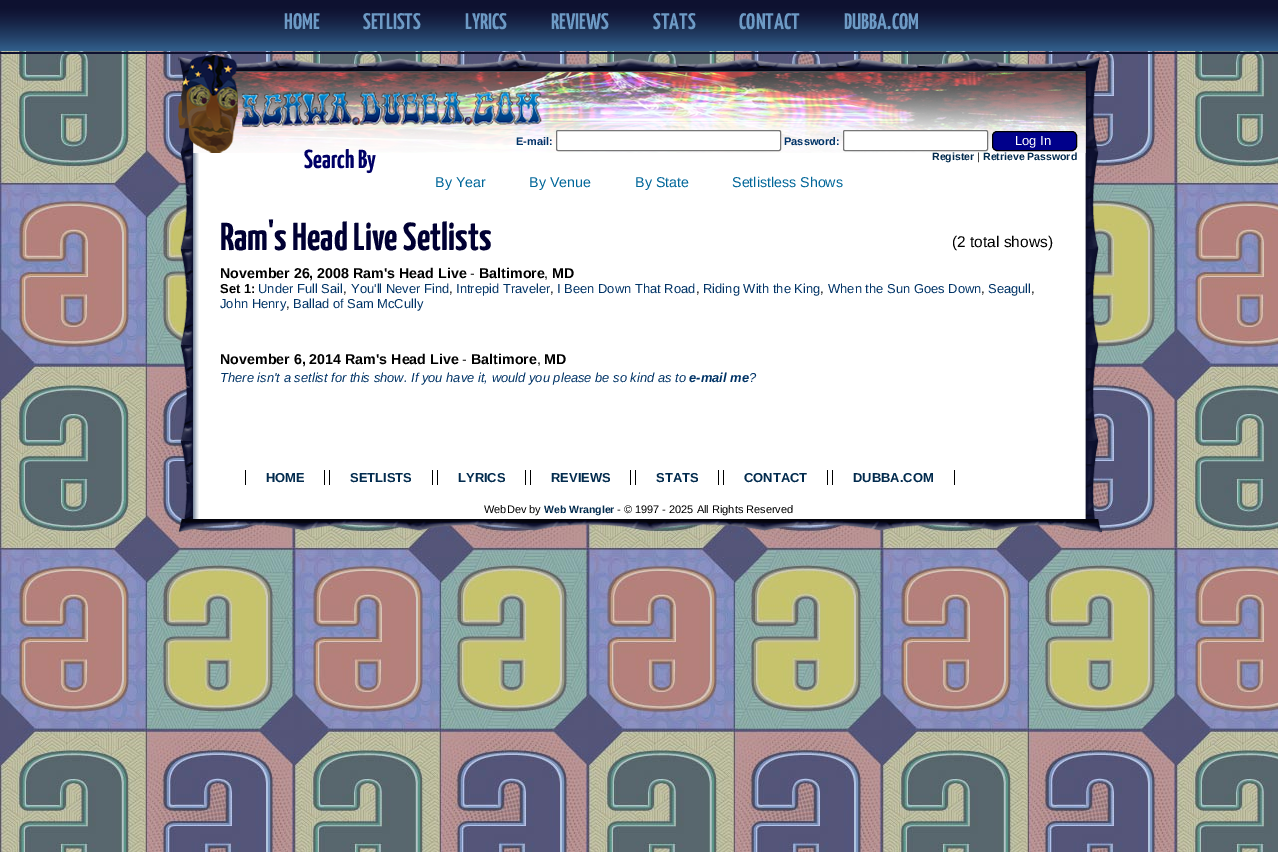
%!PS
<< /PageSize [1278 852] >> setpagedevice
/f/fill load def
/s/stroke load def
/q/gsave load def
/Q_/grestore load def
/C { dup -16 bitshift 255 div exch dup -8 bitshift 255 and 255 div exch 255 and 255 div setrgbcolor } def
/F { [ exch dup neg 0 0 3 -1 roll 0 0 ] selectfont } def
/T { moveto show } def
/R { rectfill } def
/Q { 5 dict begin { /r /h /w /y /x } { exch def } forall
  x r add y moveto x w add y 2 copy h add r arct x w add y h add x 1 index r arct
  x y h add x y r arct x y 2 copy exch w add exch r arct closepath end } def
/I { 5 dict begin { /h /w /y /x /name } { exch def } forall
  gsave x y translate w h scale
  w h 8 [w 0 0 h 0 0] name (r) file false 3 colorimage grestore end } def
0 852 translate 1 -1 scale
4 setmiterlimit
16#FFFFFF C
0 0 1278 852 R
(1.rgb) 0 51 1278 801 I
(2.rgb) 0 0 1278 54 I
/YanoneKaffeesatz-Bold 22.5 F
16#6D9AC5 C
(HOME) 284 29 T
(SETLISTS) 363 29 T
(LYRICS) 465 29 T
(REVIEWS) 551 29 T
(STATS) 653 29 T
(CONTACT) 739 29 T
(DUBBA.COM) 844 29 T
(3.rgb) 178 55 924 98 I
/LiberationSans-Bold 11 F
16#003366 C
(E-mail:) 516 145 T
16#FFFFFF C
556.5 130.5 224 20 1.5 Q q f Q_
16#767676 C
s
16#003366 C
(Password:) 784 145 T
16#FFFFFF C
843.5 130.5 144 20 1.5 Q q f Q_
16#767676 C
s
16#00008B C
992.5 131.5 84 19 4.5 Q q f Q_
16#000000 C
s
/LiberationSans-Regular 13 F
16#FFFFFF C
(Log In) 1015 145 T
(4.rgb) 180 153 919 366 I
/LiberationSans-Bold 10.5 F
16#022B4E C
(Register) 932 160 T
/LiberationSans-Regular 10.5 F
16#000000 C
(|) 977 160 T
/LiberationSans-Bold 10.5 F
16#022B4E C
(Retrieve Password) 983 160 T
/YanoneKaffeesatz-Bold 26 F
16#000066 C
(Search By) 304 168 T
/LiberationSans-Regular 14.25 F
16#006699 C
(By Year) 435 187 T
(By Venue) 529 187 T
(By State) 635 187 T
(Setlistless Shows) 732 187 T
/YanoneKaffeesatz-Bold 39 F
16#000033 C
(Ram's Head Live Setlists) 220 250 T
/LiberationSans-Regular 15.5 F
16#000000 C
(\(2 total shows\)) 952 247 T
/LiberationSans-Bold 14.25 F
(November 26, 2008 Ram's Head Live) 220 278 T
/LiberationSans-Regular 14.25 F
(-) 470 278 T
/LiberationSans-Bold 14.25 F
(Baltimore) 479 278 T
(MD) 552 278 T
/LiberationSans-Regular 14.25 F
(,) 544 278 T
/LiberationSans-Bold 12.95 F
(Set 1:) 220 293 T
/LiberationSans-Regular 12.95 F
16#003366 C
(Under Full Sail) 258 293 T
16#000000 C
(,) 343 293 T
16#003366 C
(You'll Never Find) 351 293 T
16#000000 C
(,) 449 293 T
16#003366 C
(Intrepid Traveler) 456 293 T
16#000000 C
(,) 550 293 T
16#003366 C
(I Been Down That Road) 557 293 T
16#000000 C
(,) 696 293 T
16#003366 C
(Riding With the King) 703 293 T
16#000000 C
(,) 820 293 T
16#003366 C
(When the Sun Goes Down) 828 293 T
16#000000 C
(,) 981 293 T
16#003366 C
(Seagull) 988 293 T
16#000000 C
(,) 1031 293 T
16#003366 C
(John Henry) 220 308 T
16#000000 C
(,) 286 308 T
16#003366 C
(Ballad of Sam McCully) 293 308 T
/LiberationSans-Bold 14.25 F
16#000000 C
(November 6, 2014 Ram's Head Live) 220 364 T
/LiberationSans-Regular 14.25 F
(-) 462 364 T
/LiberationSans-Bold 14.25 F
(Baltimore) 471 364 T
(MD) 544 364 T
/LiberationSans-Regular 14.25 F
(,) 537 364 T
/LiberationSans-Italic 12.95 F
16#003366 C
(There isn't a setlist for this show. If you have it, would you please be so kind as to) 220 382 T
/LiberationSans-BoldItalic 12.95 F
(e-mail me) 689 382 T
/LiberationSans-Italic 12.95 F
(?) 749 382 T
/LiberationSans-Bold 12.95 F
16#022B4E C
(HOME) 266 482 T
16#000000 C
324 470 1 15 R
245 470 1 15 R
16#022B4E C
(SETLISTS) 350 482 T
16#000000 C
432 470 1 15 R
329 470 1 15 R
16#022B4E C
(LYRICS) 458 482 T
16#000000 C
525 470 1 15 R
437 470 1 15 R
16#022B4E C
(REVIEWS) 551 482 T
16#000000 C
630 470 1 15 R
530 470 1 15 R
16#022B4E C
(STATS) 656 482 T
16#000000 C
718 470 1 15 R
635 470 1 15 R
16#022B4E C
(CONTACT) 744 482 T
16#000000 C
827 470 1 15 R
723 470 1 15 R
16#022B4E C
(DUBBA.COM) 853 482 T
16#000000 C
954 470 1 15 R
832 470 1 15 R
/LiberationSans-Regular 11 F
(WebDev by) 484 513 T
/LiberationSans-Bold 10.5 F
16#022B4E C
(Web Wrangler) 544 513 T
/LiberationSans-Regular 11 F
16#000000 C
(- © 1997 - 2025 All Rights Reserved) 617 513 T
(5.rgb) 177 519 925 15 I
showpage
